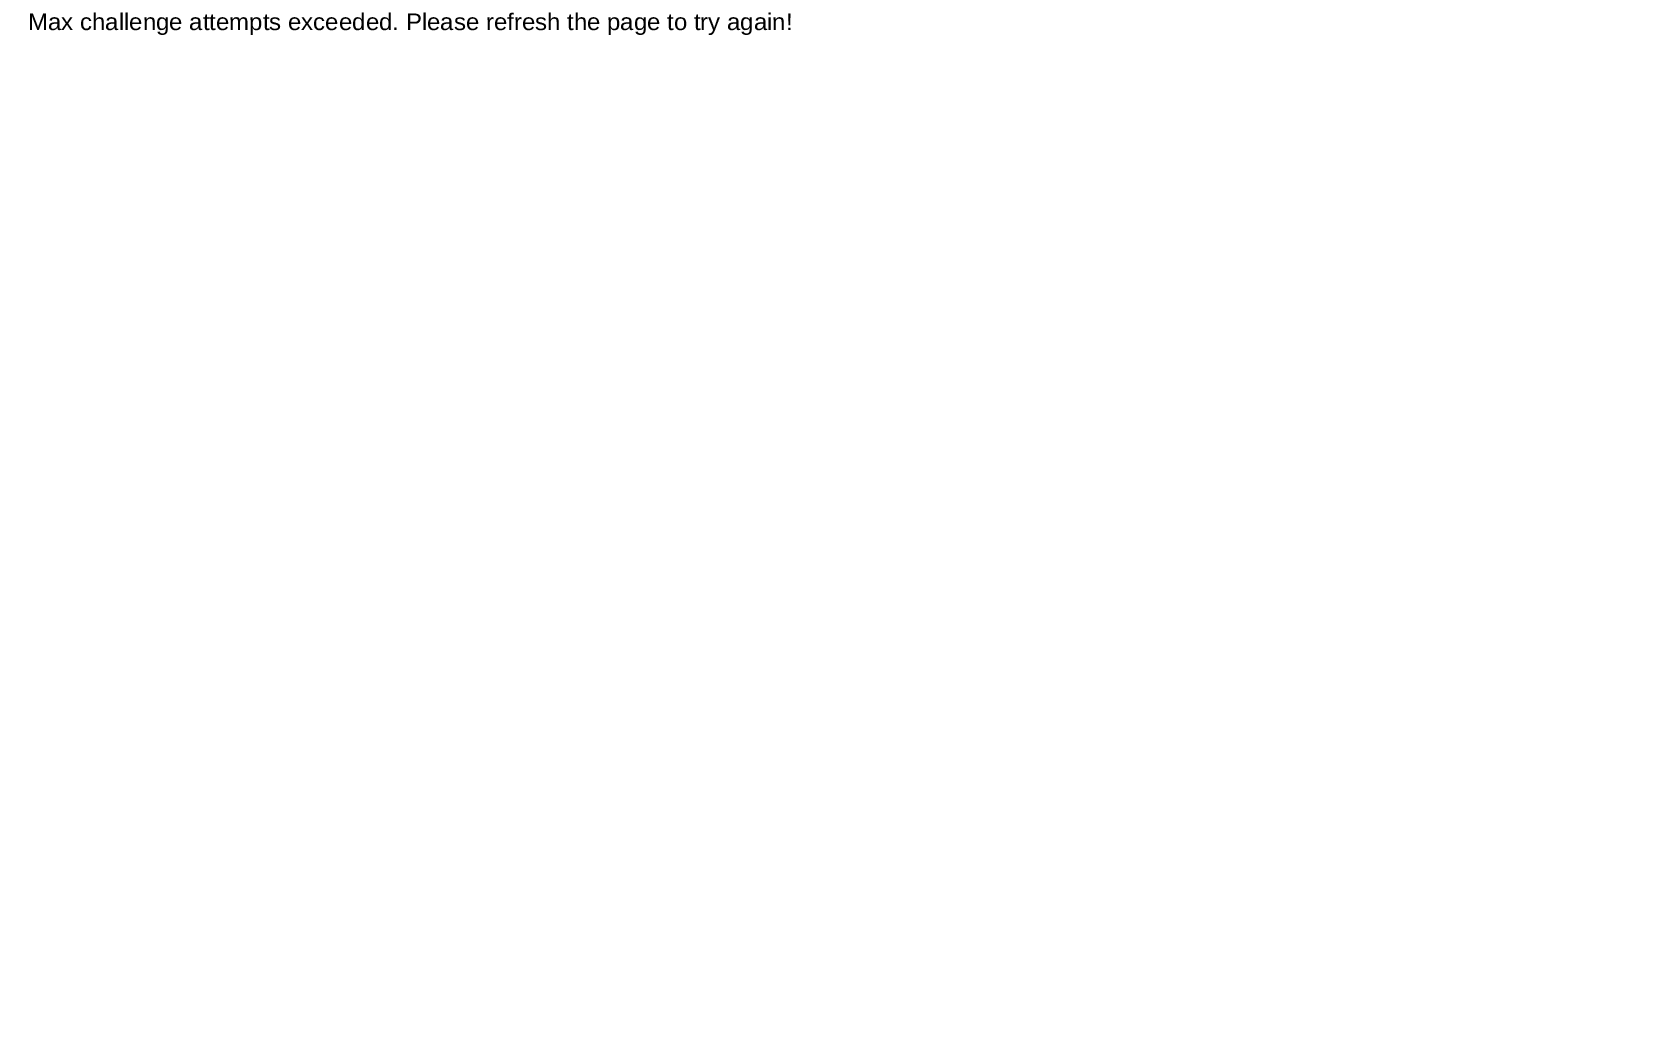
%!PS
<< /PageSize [1660 1039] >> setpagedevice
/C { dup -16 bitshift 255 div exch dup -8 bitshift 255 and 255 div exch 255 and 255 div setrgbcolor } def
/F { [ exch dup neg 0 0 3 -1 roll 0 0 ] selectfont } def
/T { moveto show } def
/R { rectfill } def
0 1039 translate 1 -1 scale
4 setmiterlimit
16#FFFFFF C
0 0 1660 1039 R
/LiberationSans-Regular 24 F
16#000000 C
(Max challenge attempts exceeded. Please refresh the page to try again!) 28 30 T
showpage
